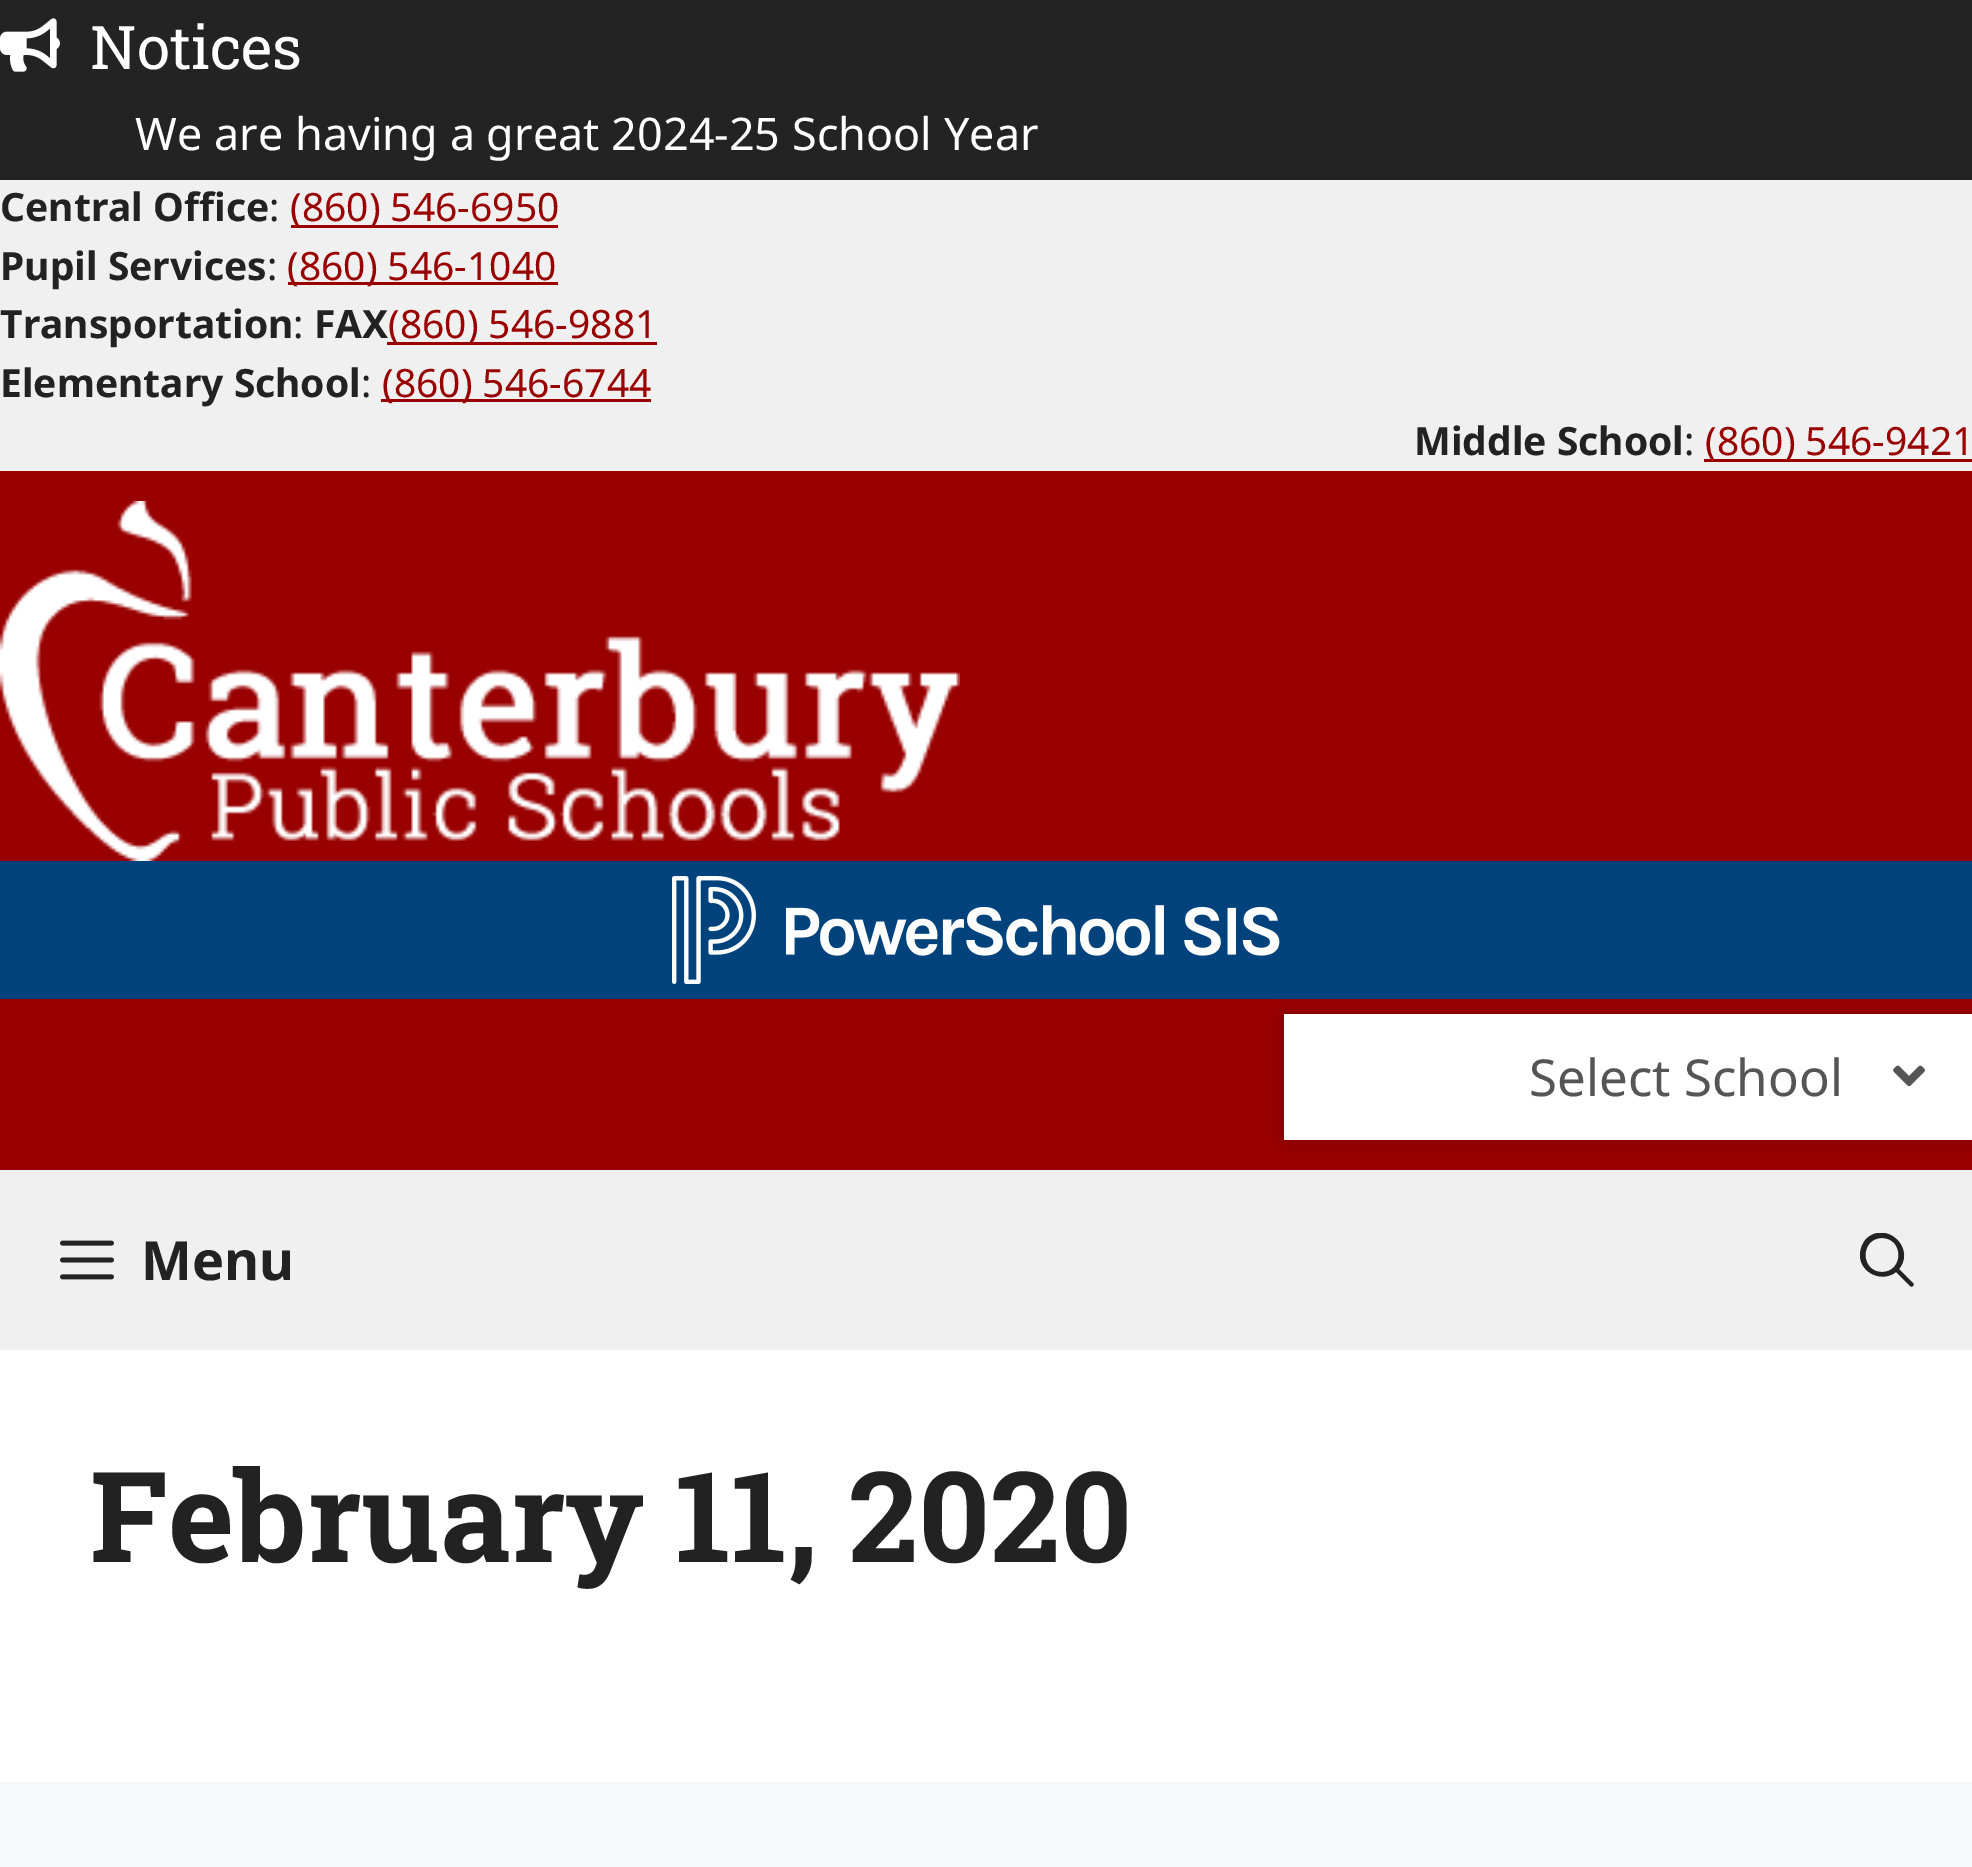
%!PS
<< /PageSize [1972 1867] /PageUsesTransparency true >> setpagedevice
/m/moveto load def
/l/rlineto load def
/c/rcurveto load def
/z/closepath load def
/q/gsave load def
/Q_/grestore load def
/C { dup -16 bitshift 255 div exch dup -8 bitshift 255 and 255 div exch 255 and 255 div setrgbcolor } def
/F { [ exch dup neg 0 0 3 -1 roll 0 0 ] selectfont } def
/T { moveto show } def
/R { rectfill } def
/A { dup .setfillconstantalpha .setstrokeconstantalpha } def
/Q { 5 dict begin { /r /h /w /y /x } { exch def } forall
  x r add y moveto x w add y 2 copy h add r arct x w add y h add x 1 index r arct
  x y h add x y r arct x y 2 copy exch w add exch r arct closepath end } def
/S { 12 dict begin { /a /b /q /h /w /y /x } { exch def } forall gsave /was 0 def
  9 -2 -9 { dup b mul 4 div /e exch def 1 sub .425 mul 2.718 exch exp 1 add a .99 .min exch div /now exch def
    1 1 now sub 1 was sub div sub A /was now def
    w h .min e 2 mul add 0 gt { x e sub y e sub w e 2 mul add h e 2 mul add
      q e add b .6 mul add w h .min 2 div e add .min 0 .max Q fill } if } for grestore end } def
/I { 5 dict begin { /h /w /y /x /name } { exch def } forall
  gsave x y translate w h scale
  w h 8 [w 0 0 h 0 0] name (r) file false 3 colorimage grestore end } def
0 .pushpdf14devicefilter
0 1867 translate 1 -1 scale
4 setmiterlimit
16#FFFFFF C
0 0 1972 1867 R
16#232323 C
0 0 1972 180 R
(1.rgb) 0 18 60 54 I
/RobotoSlab-Regular 60 F
16#FFFFFF C
(Notices) 90 69 T
/NotoSans-Regular 45 F
(We are having a great 2024-25 School Year) 135 150 T
16#F0F0F0 C
0 180 1972 291 R
/NotoSans-Bold 39 F
16#222222 C
(Central Office) 0 221 T
/NotoSans-Regular 39 F
(:) 269 221 T
16#990000 C
291 225 267 3 R
(\(860\) 546-6950) 290 221 T
/NotoSans-Bold 39 F
16#222222 C
(Pupil Services) 0 280 T
/NotoSans-Regular 39 F
(:) 267 280 T
16#990000 C
288 282 270 3 R
(\(860\) 546-1040) 287 280 T
/NotoSans-Bold 39 F
16#222222 C
(Transportation) 0 338 T
/NotoSans-Regular 39 F
(:) 293 338 T
/NotoSans-Bold 39 F
(FAX) 314 338 T
16#990000 C
387 342 270 3 R
/NotoSans-Regular 39 F
(\(860\) 546-9881) 388 338 T
/NotoSans-Bold 39 F
16#222222 C
(Elementary School) 0 397 T
/NotoSans-Regular 39 F
(:) 361 397 T
16#990000 C
381 399 270 3 R
(\(860\) 546-6744) 382 397 T
/NotoSans-Bold 39 F
16#222222 C
(Middle School) 1414 455 T
/NotoSans-Regular 39 F
(:) 1684 455 T
16#990000 C
1704 459 268 3 R
(\(860\) 546-9421) 1705 455 T
0 471 1972 699 R
(2.rgb) 0 501 960 360 I
16#00427C C
0 861 1972 138 R
(3.rgb) 672 876 608 108 I
16#000000 C
1284 1014 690 126 0 7.5 .15 S
16#FFFFFF C
1284 1014 688 126 R
/NotoSans-Regular 51 F
16#555555 C
(Select School) 1529 1096 T
(4.rgb) 1893 1065 32 22 I
16#F0F0F0 C
0 1170 1972 180 R
(5.rgb) 60 1240 54 40 I
/NotoSans-Bold 54 F
16#222222 C
(Menu) 141 1280 T
q
1860 1233 54 54 rectclip
16#232323 C
1882 1238 m -22 0 -22 34 0 34 c 22 0 22 -34 0 -34 c z 1860 1255 m 0 -6 2 -11 6 -16 c 20 -19 50 9 33 30 c 14 14 l 1 1 1 2 0 3 c -1 1 -2 1 -3 0 c -14 -14 l -14 11 -36 1 -36 -17 c z eofill
Q_
/RobotoSlab-Bold 126 F
(February 11, 2020) 90 1562 T
16#F7F8F9 C
0 1782 1972 85 R
.poppdf14devicefilter showpage
